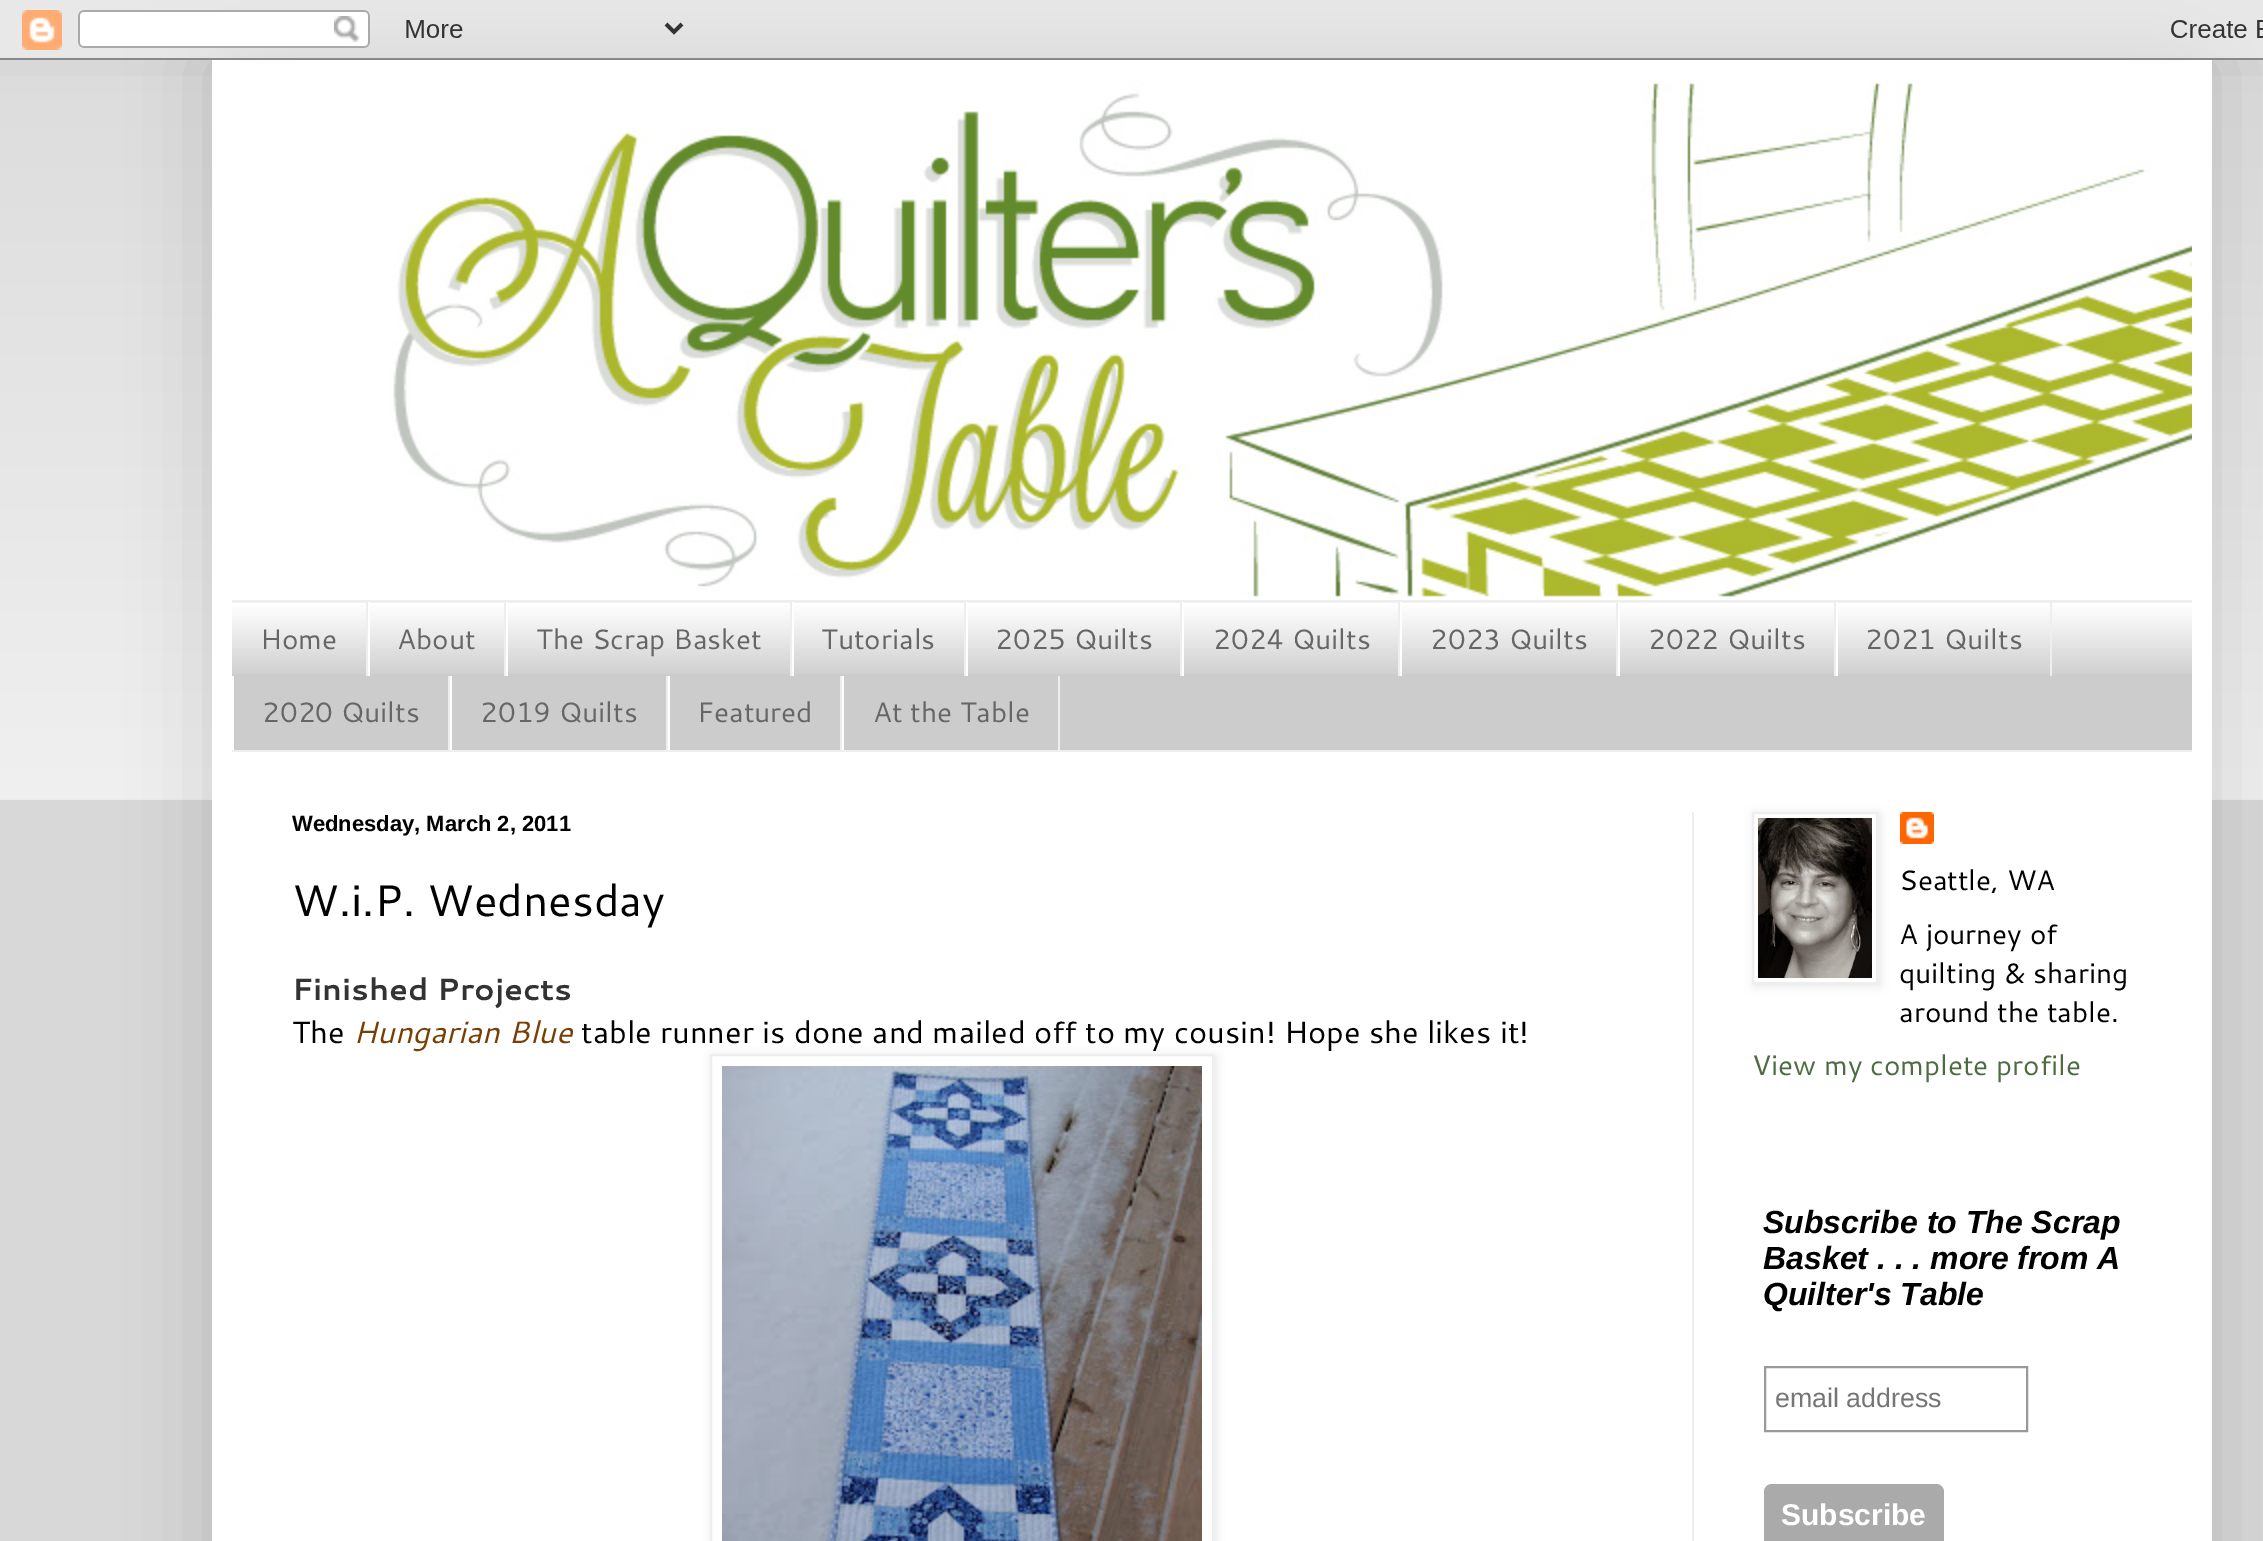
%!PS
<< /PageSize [2263 1541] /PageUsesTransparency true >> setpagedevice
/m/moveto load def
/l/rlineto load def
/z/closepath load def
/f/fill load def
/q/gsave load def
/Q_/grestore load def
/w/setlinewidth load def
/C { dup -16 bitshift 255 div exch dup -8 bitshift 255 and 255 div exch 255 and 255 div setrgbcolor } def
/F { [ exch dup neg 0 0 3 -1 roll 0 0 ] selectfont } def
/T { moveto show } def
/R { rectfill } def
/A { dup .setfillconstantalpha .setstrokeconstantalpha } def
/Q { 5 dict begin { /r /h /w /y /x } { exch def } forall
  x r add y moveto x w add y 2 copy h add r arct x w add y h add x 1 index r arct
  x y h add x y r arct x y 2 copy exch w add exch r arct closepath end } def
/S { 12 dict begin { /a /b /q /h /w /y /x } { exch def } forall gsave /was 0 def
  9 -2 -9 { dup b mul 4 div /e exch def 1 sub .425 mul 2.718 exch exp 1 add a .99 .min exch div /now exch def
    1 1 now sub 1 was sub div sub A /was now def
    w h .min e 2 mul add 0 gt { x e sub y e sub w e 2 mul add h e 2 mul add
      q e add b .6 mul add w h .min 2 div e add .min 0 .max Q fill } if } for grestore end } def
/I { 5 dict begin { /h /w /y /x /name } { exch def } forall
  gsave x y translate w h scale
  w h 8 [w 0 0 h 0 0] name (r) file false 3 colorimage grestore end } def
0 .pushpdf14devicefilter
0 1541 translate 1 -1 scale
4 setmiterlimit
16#D8D8D8 C
0 0 2263 1541 R
(2.rgb) 0 76 2263 724 I
16#000000 C
212 60 2000 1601 0 40 .15 S
(1.rgb) 0 0 2263 60 I
16#FFFFFF C
212 60 2000 1481 R
(3.rgb) 393 80 1799 517 I
16#CCCCCC C
232 602 1960 148 R
(4.rgb) 232 602 1960 72 I
16#EEEEEE C
232 600 1960 2 R
232 750 1960 2 R
366 602 2 74 R
/Cantarell-Regular 28 F
16#666666 C
(Home) 260 649 T
16#EEEEEE C
504 602 2 74 R
16#FFFFFF C
368 602 2 74 R
16#666666 C
(About) 397 649 T
16#EEEEEE C
790 602 2 74 R
16#FFFFFF C
506 602 2 74 R
16#666666 C
(The Scrap Basket) 536 649 T
16#EEEEEE C
964 602 2 74 R
16#FFFFFF C
792 602 2 74 R
16#666666 C
(Tutorials) 821 649 T
16#EEEEEE C
1180 602 2 74 R
16#FFFFFF C
966 602 2 74 R
16#666666 C
(2025 Quilts) 995 649 T
16#EEEEEE C
1398 602 2 74 R
16#FFFFFF C
1182 602 2 74 R
16#666666 C
(2024 Quilts) 1213 649 T
16#EEEEEE C
1616 602 2 74 R
16#FFFFFF C
1400 602 2 74 R
16#666666 C
(2023 Quilts) 1430 649 T
16#EEEEEE C
1834 602 2 74 R
16#FFFFFF C
1618 602 2 74 R
16#666666 C
(2022 Quilts) 1648 649 T
16#EEEEEE C
2050 602 2 74 R
16#FFFFFF C
1836 602 2 74 R
16#666666 C
(2021 Quilts) 1865 649 T
16#EEEEEE C
448 676 2 74 R
16#FFFFFF C
232 676 2 74 R
16#666666 C
(2020 Quilts) 262 722 T
16#EEEEEE C
666 676 2 74 R
16#FFFFFF C
450 676 2 74 R
16#666666 C
(2019 Quilts) 480 722 T
16#EEEEEE C
840 676 2 74 R
16#FFFFFF C
668 676 2 74 R
16#666666 C
(Featured) 697 722 T
16#EEEEEE C
1058 676 2 74 R
16#FFFFFF C
842 676 2 74 R
16#666666 C
(At the Table) 873 722 T
16#EEEEEE C
1692 812 2 729 R
/LiberationSans-Bold 22 F
16#000000 C
(Wednesday, March 2, 2011) 292 831 T
/Cantarell-Regular 44 F
(W.i.P. Wednesday) 292 916 T
/Cantarell-Bold 30.8 F
16#333333 C
(Finished Projects) 292 1000 T
/Cantarell-Regular 30.8 F
16#000000 C
(The) 292 1043 T
/Cantarell-Italic 30.8 F
16#783F04 C
(Hungarian Blue) 353 1043 T
/Cantarell-Regular 30.8 F
16#000000 C
(table runner is done and mailed off to my cousin! Hope she likes it!) 581 1043 T
q
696 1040 m 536 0 l 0 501 l -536 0 l z 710 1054 m 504 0 l 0 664 l -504 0 l z eoclip newpath
712 1056 504 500 0 5 .1 S
Q_
16#EEEEEE C
2 w
711 1055 502 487 rectstroke
(5.rgb) 722 1066 480 475 I
q
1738 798 m 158 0 l 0 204 l -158 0 l z 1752 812 m 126 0 l 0 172 l -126 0 l z eoclip newpath
16#000000 C
1754 814 126 172 0 5 .1 S
Q_
1753 813 124 170 rectstroke
(6.rgb) 1758 818 114 160 I
(7.rgb) 1900 812 34 32 I
/Cantarell-Regular 28 F
16#000000 C
(Seattle, WA) 1899 890 T
(A journey of) 1899 944 T
(quilting & sharing) 1899 983 T
(around the table.) 1899 1022 T
16#4D6C41 C
(View my complete profile) 1752 1075 T
/LiberationSans-BoldItalic 32 F
16#000000 C
(Subscribe to The Scrap) 1763 1233 T
(Basket . . . more from A) 1763 1269 T
(Quilter's Table) 1763 1305 T
16#999999 C
1765 1367 262 64 rectstroke
/LiberationSans-Regular 26.75 F
16#757575 C
(email address) 1775 1407 T
16#AAAAAA C
1764 1484 180 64 8 Q f
/LiberationSans-Bold 30 F
16#FFFFFF C
(Subscribe) 1781 1525 T
.poppdf14devicefilter showpage
